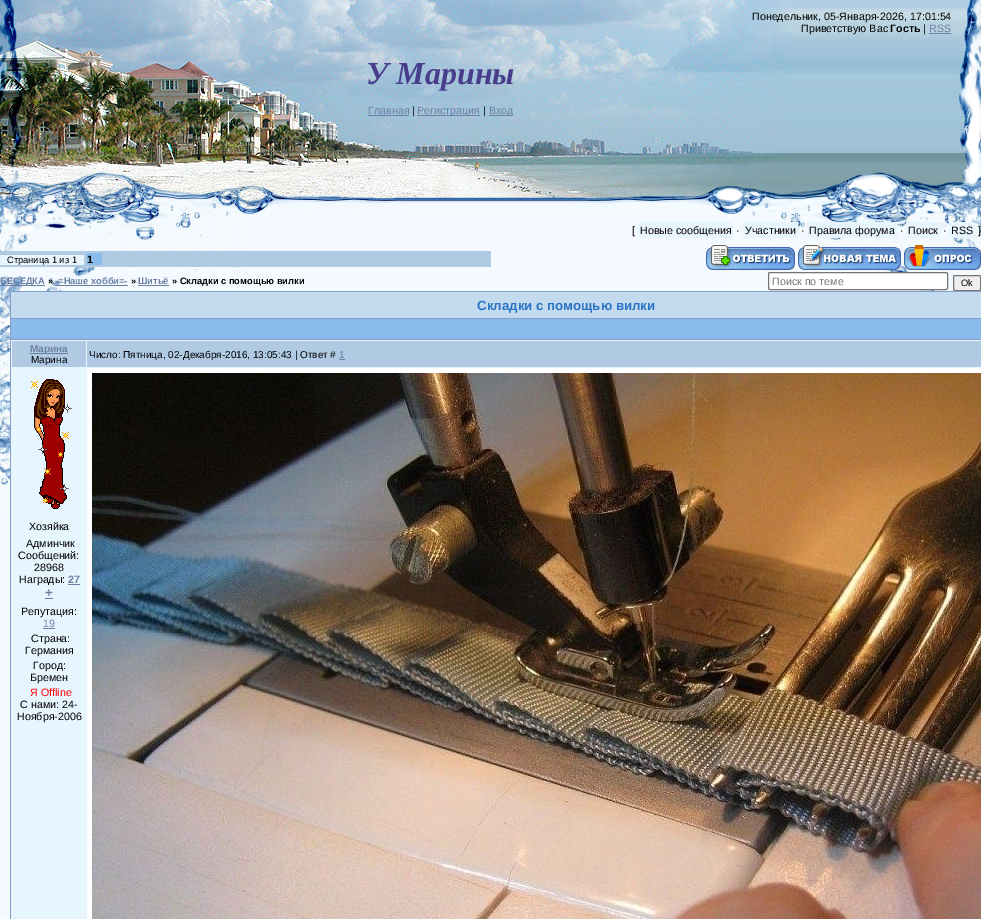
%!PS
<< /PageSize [981 919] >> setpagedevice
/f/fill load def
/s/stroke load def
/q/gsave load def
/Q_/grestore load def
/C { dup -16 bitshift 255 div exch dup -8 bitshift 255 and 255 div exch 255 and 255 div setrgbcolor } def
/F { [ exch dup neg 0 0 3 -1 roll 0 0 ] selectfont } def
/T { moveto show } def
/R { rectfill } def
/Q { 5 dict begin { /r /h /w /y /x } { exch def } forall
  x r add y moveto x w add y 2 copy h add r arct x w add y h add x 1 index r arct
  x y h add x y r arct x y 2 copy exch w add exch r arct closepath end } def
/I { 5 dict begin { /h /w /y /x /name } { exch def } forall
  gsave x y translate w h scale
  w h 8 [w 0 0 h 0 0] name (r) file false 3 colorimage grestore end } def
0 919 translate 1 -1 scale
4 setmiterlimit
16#F4FAFF C
0 0 981 919 R
(1.rgb) 788 0 182 193 I
(2.rgb) 308 0 480 215 I
(3.rgb) 0 0 308 215 I
(4.rgb) 573 0 408 215 I
/LiberationSans-Regular 10.7 F
16#000000 C
(Понедельник, 05-Января-2026, 17:01:54) 752 20 T
(Приветствую Вас) 801 32 T
/LiberationSans-Bold 10.7 F
(Гость) 890 32 T
/LiberationSans-Regular 10.7 F
(|) 923 32 T
16#6B80A3 C
(RSS) 929 32 T
929 33 22 1 R
/LiberationSerif-BoldItalic 32 F
16#483D8B C
(У Марины) 366 84 T
/LiberationSans-Regular 10.7 F
16#6B80A3 C
(Главная) 368 114 T
368 115 41 1 R
16#000000 C
(|) 412 114 T
16#6B80A3 C
417 115 63 1 R
(Регистрация) 417 114 T
16#000000 C
(|) 483 114 T
16#6B80A3 C
489 115 24 1 R
(Вход) 489 114 T
(5.rgb) 735 215 246 76 I
(6.rgb) 0 215 247 294 I
16#000000 C
([) 632 234 T
16#E7F5FE C
638 222 95 16 R
16#000000 C
(Новые сообщения) 640 234 T
(·) 736 234 T
16#E7F5FE C
743 222 55 16 R
16#000000 C
(Участники) 745 234 T
(·) 801 234 T
16#E7F5FE C
807 222 90 16 R
16#000000 C
(Правила форума) 809 234 T
(·) 900 234 T
16#E7F5FE C
906 222 34 16 R
16#000000 C
(Поиск) 908 234 T
(·) 943 234 T
16#E7F5FE C
949 222 26 16 R
16#000000 C
(RSS) 951 234 T
(]) 978 234 T
16#B0CAE4 C
0 251 491 16 R
16#E8F5FE C
0 255 84 10 R
/LiberationSans-Regular 9.3 F
16#000000 C
(Страница 1 из 1) 7 263 T
16#8ABCEB C
87 253 15 12 R
/LiberationSans-Bold 10.7 F
16#000000 C
(1) 87 263 T
(7.rgb) 706 245 89 25 I
(8.rgb) 798 245 103 25 I
(9.rgb) 904 245 77 25 I
16#6B80A3 C
0 285 45 1 R
/LiberationSans-Bold 9.3 F
(БЕСЕДКА) 0 284 T
16#000000 C
(») 48 284 T
16#6B80A3 C
(-=Наше хобби=-) 55 284 T
55 285 73 1 R
16#000000 C
(») 131 284 T
16#6B80A3 C
(Шитьё) 138 284 T
138 285 31 1 R
16#000000 C
(» Складки с помощью вилки) 172 284 T
16#FFFFFF C
768.5 272.5 179 17 1.5 Q q f Q_
16#767676 C
s
/LiberationSans-Regular 10.7 F
16#757575 C
(Поиск по теме) 772 285 T
16#EFEFEF C
953.5 275.5 27 15 1.5 Q q f Q_
16#767676 C
s
/LiberationSans-Regular 9.3 F
16#000000 C
(Ok) 961 286 T
16#849FCA C
10 291 971 628 R
16#C4DAEF C
11 292 970 26 R
/LiberationSans-Bold 13.3 F
16#2A75C4 C
(Складки с помощью вилки) 477 310 T
16#8ABCEB C
11 319 970 20 R
16#E7F5FF C
11 340 970 579 R
16#B0CAE4 C
12 341 74 26 R
16#6B80A3 C
30 353 38 1 R
/LiberationSans-Bold 10 F
(Марина) 30 352 T
/LiberationSans-Regular 10 F
16#000000 C
(Марина) 31 363 T
16#B0CAE4 C
87 341 894 26 R
16#000000 C
(Число: Пятница, 02-Декабря-2016, 13:05:43 | Ответ #) 89 358 T
16#6B80A3 C
(1) 339 358 T
339 359 6 1 R
(10.rgb) 31 379 41 130 I
/LiberationSans-Regular 10.7 F
16#000000 C
(Хозяйка) 29 530 T
(Админчик) 26 547 T
(Сообщений:) 18 559 T
(28968) 34 571 T
(Награды:) 19 583 T
/LiberationSans-Bold 10.7 F
16#6B80A3 C
(27) 68 583 T
68 584 12 1 R
/LiberationSans-Bold 13.3 F
(+) 45 597 T
45 598 8 1 R
/LiberationSans-Regular 10.7 F
16#000000 C
(Репутация:) 21 615 T
16#6B80A3 C
(19) 43 627 T
43 628 12 1 R
16#000000 C
(Страна:) 31 642 T
(Германия) 25 654 T
(Город:) 33 669 T
(Бремен) 30 681 T
16#FF0000 C
(Я Offline) 30 696 T
16#000000 C
(С нами: 24-) 20 708 T
(Ноября-2006) 17 720 T
16#FFFFFF C
87 368 894 551 R
(11.rgb) 92 373 889 546 I
showpage
